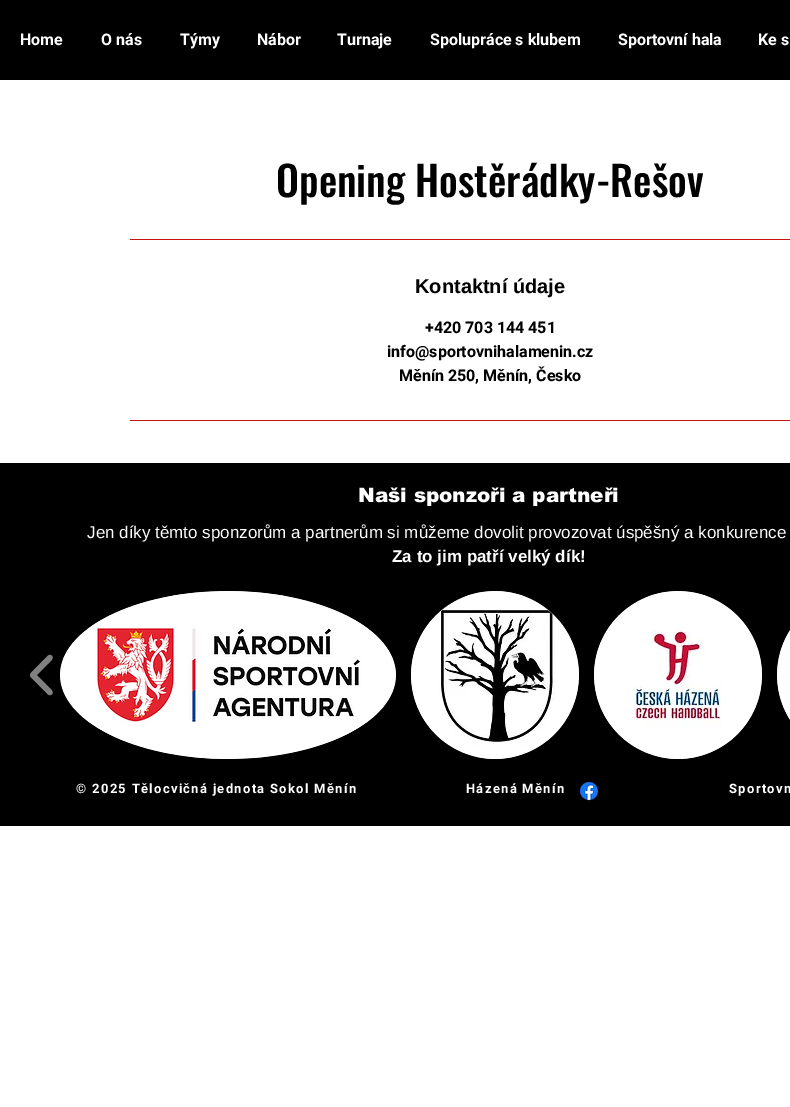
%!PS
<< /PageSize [790 1107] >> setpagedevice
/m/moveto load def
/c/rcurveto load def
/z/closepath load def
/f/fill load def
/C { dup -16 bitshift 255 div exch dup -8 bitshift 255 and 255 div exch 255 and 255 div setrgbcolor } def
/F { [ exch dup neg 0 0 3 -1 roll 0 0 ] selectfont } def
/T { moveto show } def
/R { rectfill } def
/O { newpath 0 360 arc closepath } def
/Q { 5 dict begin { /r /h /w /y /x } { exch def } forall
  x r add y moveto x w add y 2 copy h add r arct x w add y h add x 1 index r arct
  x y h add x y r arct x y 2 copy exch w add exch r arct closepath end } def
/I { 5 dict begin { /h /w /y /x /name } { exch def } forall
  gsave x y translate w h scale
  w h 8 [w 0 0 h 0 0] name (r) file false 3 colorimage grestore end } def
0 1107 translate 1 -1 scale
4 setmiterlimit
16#FFFFFF C
0 0 790 1107 R
16#000000 C
0 0 790 80 R
/Roboto-Bold 16 F
16#FFFFFF C
(Home) 20 45 T
(O nás) 101 45 T
(Týmy) 180 45 T
(Nábor) 257 45 T
(Turnaje) 337 45 T
(Spolupráce s klubem) 430 45 T
(Sportovní hala) 618 45 T
(Ke s) 758 45 T
/Oswald-Medium 41 F
16#000000 C
(Opening Hostěrádky-Rešov) 276 197 T
16#C71212 C
130 239 660 1 R
/LiberationSans-Bold 20 F
16#000000 C
(Kontaktní údaje) 415 293 T
/Roboto-Bold 16 F
(+420 703 144 451) 425 333 T
(info@sportovnihalamenin.cz) 387 357 T
(Měnín 250, Měnín, Česko) 399 381 T
16#C71212 C
130 420 660 1 R
16#000000 C
0 463 790 363 R
/arial-Black 20 F
16#FFFFFF C
(Naši sponzoři a partneři) 358 502 T
/LiberationSans-Regular 17 F
(Jen díky těmto sponzorům a partnerům si můžeme dovolit provozovat úspěšný a konkurence) 87 538 T
/LiberationSans-Bold 17 F
(Za to jim patří velký dík!) 392 562 T
(1.rgb) 29 654 24 42 I
228 591 m 93 0 168 37.5 168 84 c 0 46.5 -75 84 -168 84 c -93 0 -168 -37.5 -168 -84 c 0 -46.5 75 -84 168 -84 c z f
(2.rgb) 60 591 336 168 I
495 675 84 O f
(3.rgb) 411 591 168 168 I
678 675 84 O f
(4.rgb) 594 591 168 168 I
777 591 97 168 84 Q f
(5.rgb) 777 630 13 90 I
/Roboto-Bold 13 F
76 793 m 1.3 0 (© 2025 Tělocvičná jednota Sokol Měnín) ashow
466 793 m 1.3 0 (Házená Měnín) ashow
(6.rgb) 579 781 20 20 I
729 793 m 1.3 0 (Sportovn) ashow
showpage
